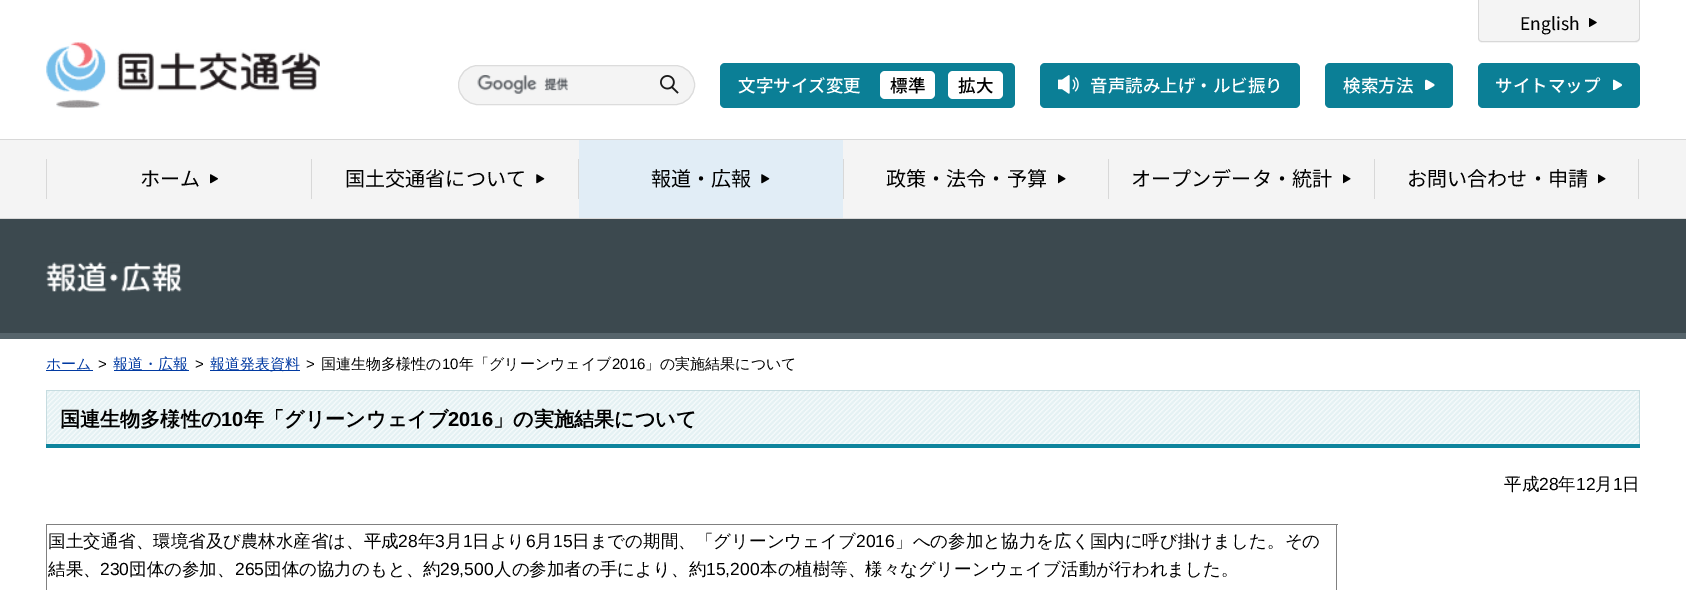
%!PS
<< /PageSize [1686 590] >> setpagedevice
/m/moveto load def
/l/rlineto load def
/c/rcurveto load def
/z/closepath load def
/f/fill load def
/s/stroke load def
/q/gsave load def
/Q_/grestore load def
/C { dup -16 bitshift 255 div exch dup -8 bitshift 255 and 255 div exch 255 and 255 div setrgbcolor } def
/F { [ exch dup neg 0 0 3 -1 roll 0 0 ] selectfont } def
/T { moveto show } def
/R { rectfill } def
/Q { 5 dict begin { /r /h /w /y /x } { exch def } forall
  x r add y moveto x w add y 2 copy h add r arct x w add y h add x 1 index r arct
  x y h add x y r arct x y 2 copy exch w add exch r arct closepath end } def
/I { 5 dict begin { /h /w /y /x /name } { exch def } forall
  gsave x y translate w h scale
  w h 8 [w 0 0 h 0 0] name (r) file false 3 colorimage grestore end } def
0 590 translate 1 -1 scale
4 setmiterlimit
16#FFFFFF C
0 0 1686 590 R
(1.rgb) 46 42 274 66 I
16#F4F4F4 C
1478 0 m 162 0 l 0 38 l 0 3 -2 5 -5 5 c -152 0 l -3 0 -5 -2 -5 -5 c z f
16#D8D8D8 C
1478 0 m 162 0 l 0 38 l 0 2 -2 4 -5 4 c -153 0 l -2 0 -4 -2 -4 -4 c z 1479 0 m 160 0 l 0 38 l 0 2 -2 3 -4 3 c -153 0 l -2 0 -3 -1 -3 -3 c z eofill
/NotoSansJP-Regular 17.5 F
16#000000 C
(English) 1520 30 T
(2.rgb) 1589 18 8 9 I
16#F4F4F4 C
458.5 65.5 236 39 19.5 Q q f Q_
16#DCDCDC C
s
(3.rgb) 477 75 92 19 I
(4.rgb) 660 75 19 19 I
16#0B7F96 C
720 63 295 45 5 Q f
/NotoSansJP-Medium 17.5 F
16#FFFFFF C
(文字サイズ変更) 738 92 T
880 71 55 28 5 Q f
16#000000 C
(標準) 890 92 T
16#FFFFFF C
948 71 55 28 5 Q f
16#000000 C
(拡大) 958 92 T
16#0B7F96 C
1040 63 260 45 5 Q f
(5.rgb) 1058 75 21 19 I
16#FFFFFF C
(音声読み上げ・ルビ振り) 1090 92 T
16#0B7F96 C
1325 63 128 45 5 Q f
16#FFFFFF C
(検索方法) 1343 92 T
(6.rgb) 1425 79 10 11 I
16#0B7F96 C
1478 63 162 45 5 Q f
16#FFFFFF C
(サイトマップ) 1495 92 T
(7.rgb) 1613 79 9 11 I
16#F4F4F4 C
0 140 1686 78 R
16#D8D8D8 C
0 139 1686 1 R
0 218 1686 1 R
46 159 1 40 R
/NotoSansJP-Regular 20.1 F
16#000000 C
(ホーム) 140 186 T
(8.rgb) 210 174 8 10 I
16#D8D8D8 C
311 159 1 40 R
16#000000 C
(国土交通省について) 345 186 T
(9.rgb) 536 174 9 10 I
16#E1EDF6 C
579 140 264 78 R
16#D8D8D8 C
578 159 1 40 R
16#000000 C
(報道・広報) 651 186 T
(10.rgb) 761 174 9 10 I
16#D8D8D8 C
843 159 1 40 R
16#000000 C
(政策・法令・予算) 886 186 T
(11.rgb) 1058 174 8 10 I
16#D8D8D8 C
1108 159 1 40 R
16#000000 C
(オープンデータ・統計) 1131 186 T
(11.rgb) 1343 174 8 10 I
16#D8D8D8 C
1374 159 1 40 R
16#000000 C
(お問い合わせ・申請) 1407 186 T
(11.rgb) 1598 174 8 10 I
16#D8D8D8 C
1638 159 1 40 R
16#3C494F C
0 219 1686 114 R
16#56646B C
0 333 1686 6 R
(12.rgb) 46 262 136 30 I
16#013AA2 C
46 370 47 1 R
/WenQuanYiZenHei-Medium 15 F
(ホーム) 46 369 T
/LiberationSans-Regular 15 F
16#000000 C
(>) 98 369 T
16#013AA2 C
114 370 75 1 R
/WenQuanYiZenHei-Medium 15 F
(報道・広報) 113 369 T
/LiberationSans-Regular 15 F
16#000000 C
(>) 195 369 T
16#013AA2 C
210 370 90 1 R
/WenQuanYiZenHei-Medium 15 F
(報道発表資料) 210 369 T
/LiberationSans-Regular 15 F
16#000000 C
(>) 306 369 T
/WenQuanYiZenHei-Medium 15 F
(国連生物多様性の) 321 369 T
/LiberationSans-Regular 15 F
(10) 442 369 T
/WenQuanYiZenHei-Medium 15 F
(年「グリーンウェイブ) 459 369 T
/LiberationSans-Regular 15 F
(2016) 612 369 T
/WenQuanYiZenHei-Medium 15 F
(」の実施結果について) 645 369 T
16#0D849D C
46 444 1594 4 R
(13.rgb) 47 391 1592 53 I
16#C6DCE0 C
46 390 1594 1 R
1639 390 1 54 R
46 390 1 54 R
/WenQuanYiZenHei-Bold 20.1 F
16#000000 C
(国連生物多様性の) 60 426 T
/LiberationSans-Bold 20.1 F
(10) 221 426 T
/WenQuanYiZenHei-Bold 20.1 F
(年「グリーンウェイブ) 244 426 T
/LiberationSans-Bold 20.1 F
(2016) 448 426 T
/WenQuanYiZenHei-Bold 20.1 F
(」の実施結果について) 493 426 T
/WenQuanYiZenHei-Medium 17.5 F
(平成) 1504 490 T
/LiberationSans-Regular 17.5 F
(28) 1539 490 T
/WenQuanYiZenHei-Medium 17.5 F
(年) 1558 490 T
/LiberationSans-Regular 17.5 F
(12) 1576 490 T
/WenQuanYiZenHei-Medium 17.5 F
(月) 1595 490 T
/LiberationSans-Regular 17.5 F
(1) 1613 490 T
/WenQuanYiZenHei-Medium 17.5 F
(日) 1622 490 T
16#808080 C
46 524 1292 1 R
1336 524 1 66 R
46 524 1 66 R
16#000000 C
(国土交通省、環境省及び農林水産省は、平成) 48 547 T
/LiberationSans-Regular 17.5 F
(28) 398 547 T
/WenQuanYiZenHei-Medium 17.5 F
(年) 418 547 T
/LiberationSans-Regular 17.5 F
(3) 435 547 T
/WenQuanYiZenHei-Medium 17.5 F
(月) 445 547 T
/LiberationSans-Regular 17.5 F
(1) 463 547 T
/WenQuanYiZenHei-Medium 17.5 F
(日より) 472 547 T
/LiberationSans-Regular 17.5 F
(6) 526 547 T
/WenQuanYiZenHei-Medium 17.5 F
(月) 535 547 T
/LiberationSans-Regular 17.5 F
(15) 553 547 T
/WenQuanYiZenHei-Medium 17.5 F
(日までの期間、「グリーンウェイブ) 572 547 T
/LiberationSans-Regular 17.5 F
(2016) 856 547 T
/WenQuanYiZenHei-Medium 17.5 F
(」への参加と協力を広く国内に呼び掛けました。その) 895 547 T
(結果、) 48 575 T
/LiberationSans-Regular 17.5 F
(230) 100 575 T
/WenQuanYiZenHei-Medium 17.5 F
(団体の参加、) 129 575 T
/LiberationSans-Regular 17.5 F
(265) 235 575 T
/WenQuanYiZenHei-Medium 17.5 F
(団体の協力のもと、約) 264 575 T
/LiberationSans-Regular 17.5 F
(29,500) 440 575 T
/WenQuanYiZenHei-Medium 17.5 F
(人の参加者の手により、約) 494 575 T
/LiberationSans-Regular 17.5 F
(15,200) 706 575 T
/WenQuanYiZenHei-Medium 17.5 F
(本の植樹等、様々なグリーンウェイブ活動が行われました。) 760 575 T
showpage
